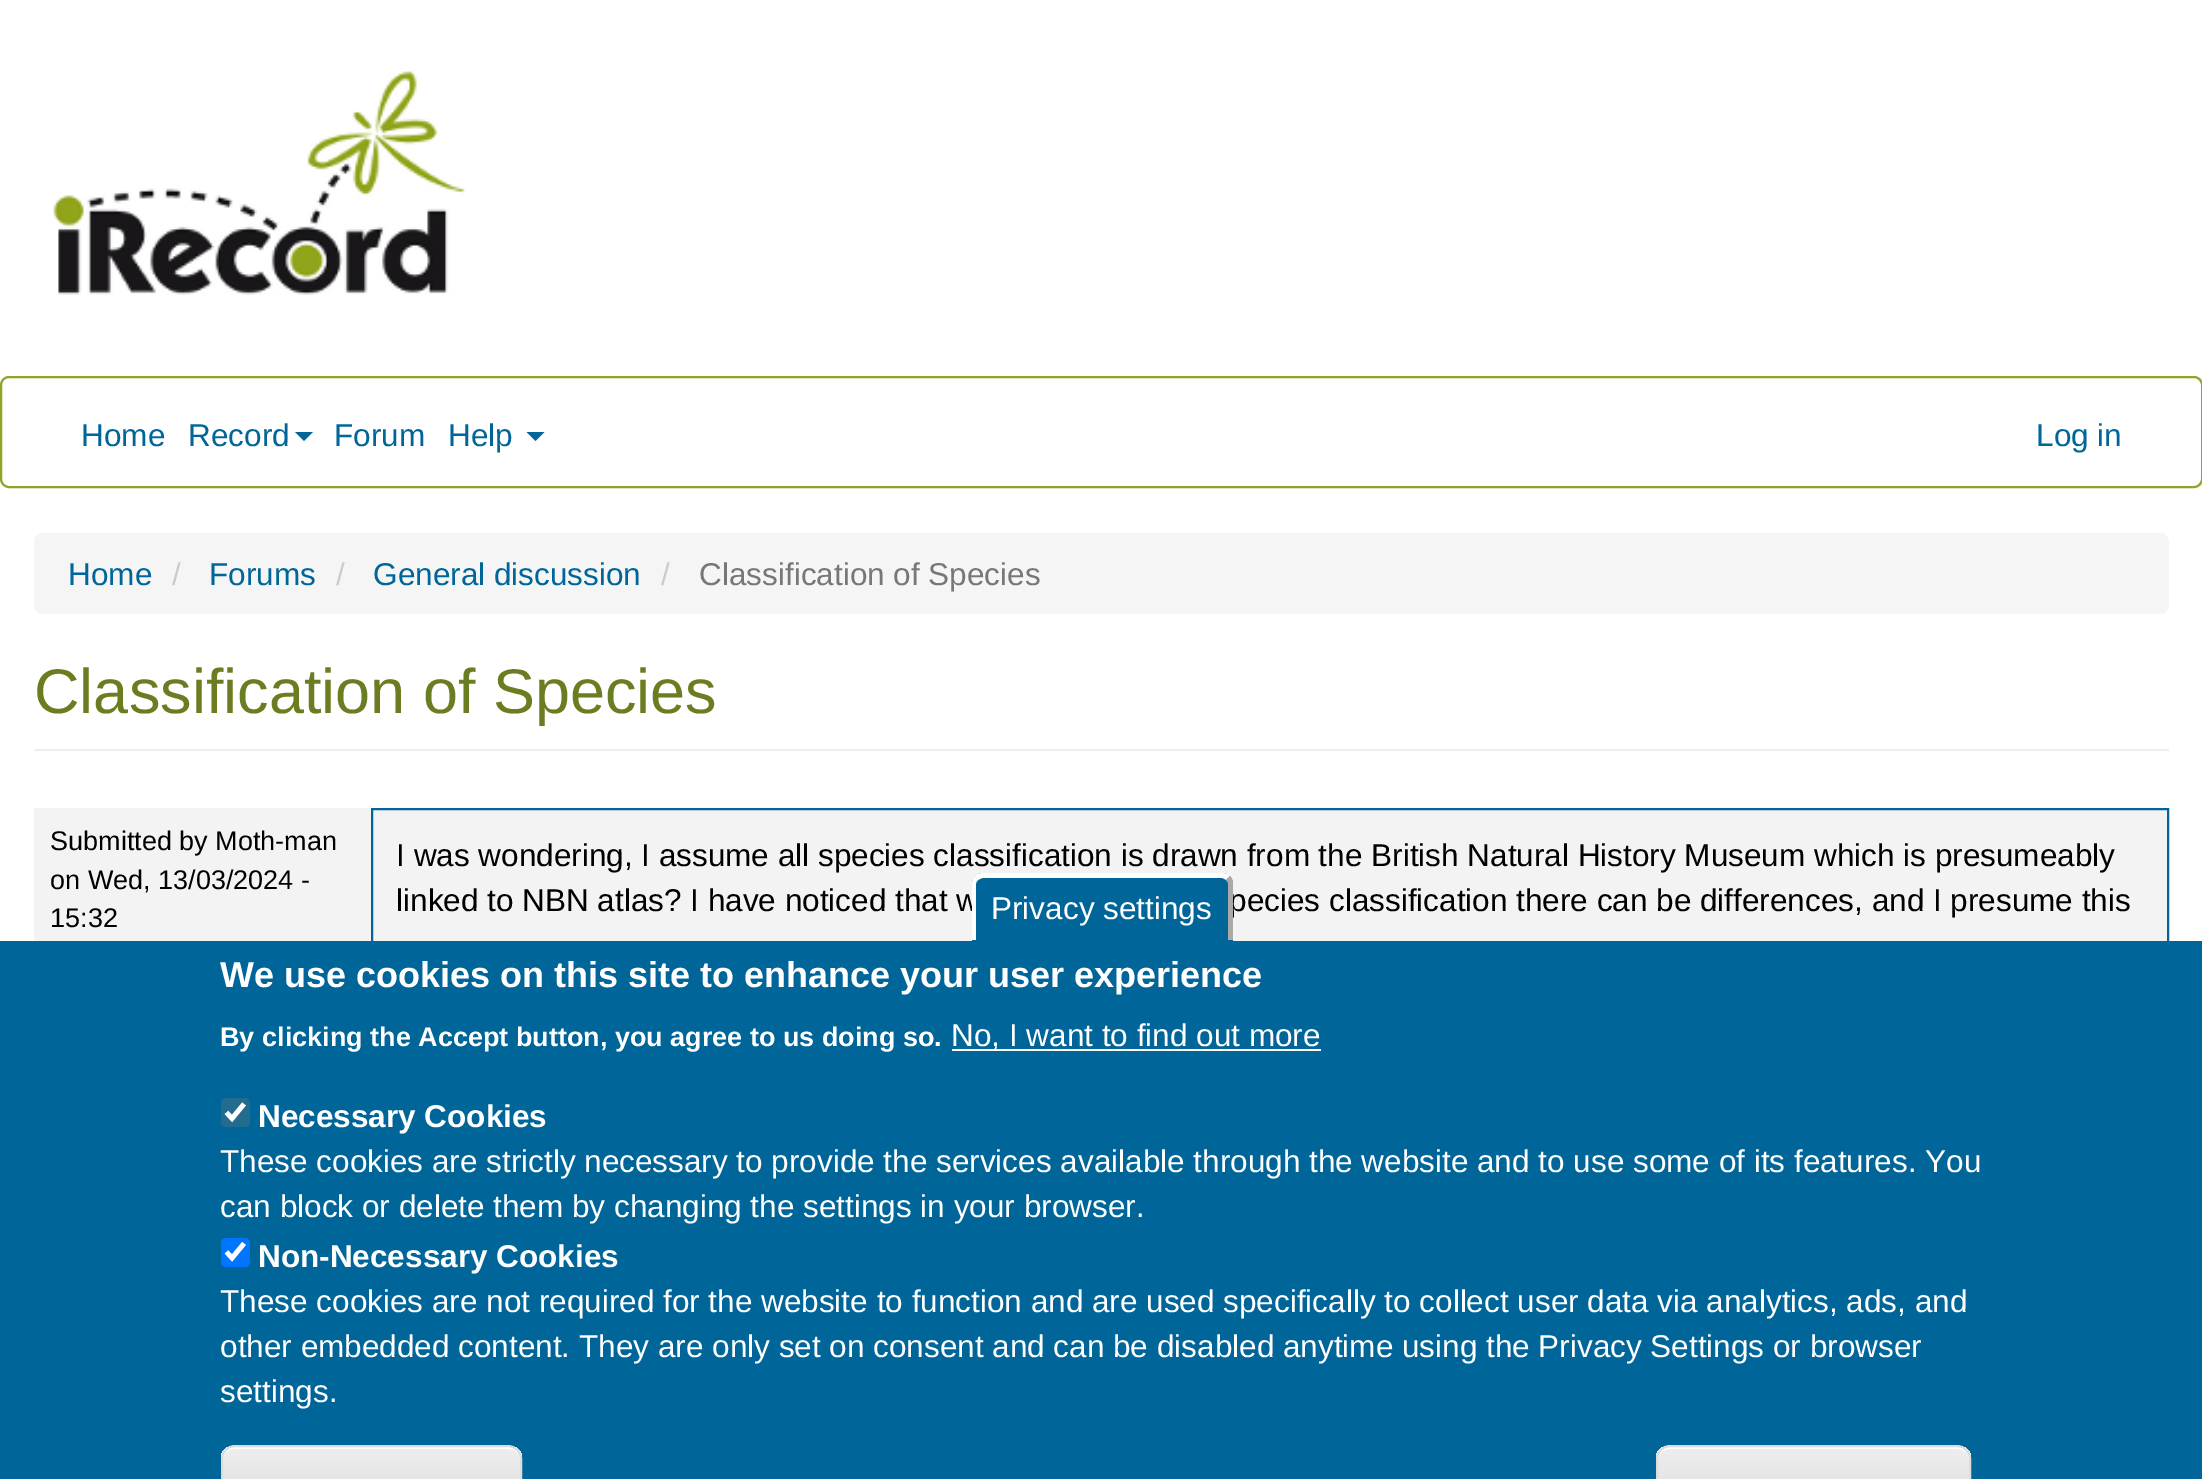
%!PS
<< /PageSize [2202 1479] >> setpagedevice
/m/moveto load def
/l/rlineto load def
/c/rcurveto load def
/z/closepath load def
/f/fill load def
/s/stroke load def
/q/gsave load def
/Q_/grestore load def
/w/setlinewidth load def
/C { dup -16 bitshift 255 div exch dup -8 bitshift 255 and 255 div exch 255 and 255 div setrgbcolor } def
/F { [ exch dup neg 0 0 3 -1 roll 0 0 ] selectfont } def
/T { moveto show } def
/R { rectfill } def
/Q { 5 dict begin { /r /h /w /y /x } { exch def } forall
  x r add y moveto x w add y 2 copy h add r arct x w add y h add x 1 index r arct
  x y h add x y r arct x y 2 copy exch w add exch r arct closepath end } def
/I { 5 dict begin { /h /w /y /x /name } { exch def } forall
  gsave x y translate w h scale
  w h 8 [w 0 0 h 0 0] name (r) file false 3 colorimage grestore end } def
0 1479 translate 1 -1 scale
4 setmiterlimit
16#FFFFFF C
0 0 2202 1479 R
(1.rgb) 53 70 413 225 I
16#8DA52B C
2 w
1 377 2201 110 8 Q s
/LiberationSans-Regular 31.5 F
16#006699 C
(Home) 81 446 T
(Record) 188 446 T
295 432 m 18 0 l -9 9 l z f
(Forum) 334 446 T
(Help) 448 446 T
526.5 432 m 18 0 l -9 9 l z f
(Log in) 2036 446 T
16#F5F5F5 C
34 533 2135 81 9 Q f
16#006699 C
(Home) 68 585 T
16#CCCCCC C
(/) 172 585 T
16#006699 C
(Forums) 209 585 T
16#CCCCCC C
(/) 336 585 T
16#006699 C
(General discussion) 373 585 T
16#CCCCCC C
(/) 661 585 T
16#777777 C
(Classification of Species) 699 585 T
16#EEEEEE C
34 749 2135 2 R
/LiberationSans-Regular 63 F
16#6A7D20 C
(Classification of Species) 34 713 T
16#F3F3F3 C
34 808 337 133 R
/LiberationSans-Regular 27 F
16#000000 C
(Submitted by Moth-man) 50 850 T
(on Wed, 13/03/2024 -) 50 889 T
(15:32) 50 927 T
16#F3F3F3 C
373 810 1794 131 R
16#006699 C
372 809 1796 452 rectstroke
/LiberationSans-Regular 31.5 F
16#000000 C
(I was wondering, I assume all species classification is drawn from the British Natural History Museum which is presumeably) 396 866 T
(linked to NBN atlas? I have noticed that w) 396 911 T
(pecies classification there can be differences, and I presume this) 1229 911 T
16#006699 C
0 941 2202 538 R
983 873 m 239 0 l 6 0 11 5 11 11 c 0 57 l -261 0 l 0 -57 l 0 -6 5 -11 11 -11 c z f
16#FFFFFF C
983 873 m 239 0 l 3 0 6 1 8 3 c -4 4 l -1 -1 -3 -2 -4 -2 c -239 0 l -2 0 -3 1 -5 2 c -3 -4 l 2 -2 5 -3 8 -3 c z f
16#AAAAAA C
1233 883 m 0 57 l -5 0 l 0 -56 l 0 -2 -1 -3 -2 -4 c 4 -4 l 1 2 3 4 3 7 c z f
16#FFFFFF C
975 876 m 3 4 l -1 1 -2 2 -2 4 c 0 56 l -4 0 l 0 -56 l 0 -3 1 -6 3 -8 c z f
(Privacy settings) 991 919 T
/LiberationSans-Bold 36 F
(We use cookies on this site to enhance your user experience) 220 987 T
/LiberationSans-Bold 27 F
(By clicking the Accept button, you agree to us doing so.) 220 1046 T
952 1049 369 2 R
/LiberationSans-Regular 31.5 F
(No, I want to find out more) 951 1046 T
16#236B8F C
221 1098 29 29 5 Q f
16#FFFFFF C
4.7 w
226.5 1112.5 m 5.5 6 l 12 -14.5 l s
/LiberationSans-Bold 31.5 F
(Necessary Cookies) 258 1127 T
/LiberationSans-Regular 31.5 F
(These cookies are strictly necessary to provide the services available through the website and to use some of its features. You) 220 1172 T
(can block or delete them by changing the settings in your browser.) 220 1217 T
16#0075FF C
221 1238 29 29 5 Q f
16#FFFFFF C
226.5 1252 m 5.5 6 l 12 -14.5 l s
/LiberationSans-Bold 31.5 F
(Non-Necessary Cookies) 258 1267 T
/LiberationSans-Regular 31.5 F
(These cookies are not required for the website to function and are used specifically to collect user data via analytics, ads, and) 220 1312 T
(other embedded content. They are only set on consent and can be disabled anytime using the Privacy Settings or browser) 220 1357 T
(settings.) 220 1402 T
q
221 1445 301 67 14 Q clip newpath
q 221 1447 m 301 0 l 0 32 l -301 0 l z clip newpath
<< /ShadingType 2 /ColorSpace /DeviceRGB /Coords [371 1447 371 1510] /Extend [true true] /Function << /FunctionType 3 /Domain [0 1] /Functions [<< /FunctionType 2 /Domain [0 1] /C0 [.929 .929 .929] /C1 [.929 .929 .929] /N 1 >> << /FunctionType 2 /Domain [0 1] /C0 [.929 .929 .929] /C1 [.875 .875 .875] /N 1 >>] /Bounds [.05] /Encode [0 1 0 1] >> >> shfill Q_
Q_
234 1449 m 274 0 l 7 0 12 5 12 11 c 0 -2 l 0 -6 -5 -11 -11 -11 c -275 0 l -6 0 -11 5 -11 11 c 0 2 l 0 -6 5 -11 11 -11 c z f
16#DCDCDC C
2 w
222 1446 299 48 13 Q s
q
1656 1445 315 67 14 Q clip newpath
q 1656 1447 m 315 0 l 0 32 l -315 0 l z clip newpath
<< /ShadingType 2 /ColorSpace /DeviceRGB /Coords [1814 1447 1814 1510] /Extend [true true] /Function << /FunctionType 3 /Domain [0 1] /Functions [<< /FunctionType 2 /Domain [0 1] /C0 [.929 .929 .929] /C1 [.929 .929 .929] /N 1 >> << /FunctionType 2 /Domain [0 1] /C0 [.929 .929 .929] /C1 [.875 .875 .875] /N 1 >>] /Bounds [.05] /Encode [0 1 0 1] >> >> shfill Q_
Q_
16#FFFFFF C
1670 1449 m 288 0 l 6 0 11 5 11 11 c 0 -2 l 0 -6 -5 -11 -11 -11 c -289 0 l -6 0 -11 5 -11 11 c 0 2 l 0 -6 5 -11 12 -11 c z f
16#DCDCDC C
1657 1446 313 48 13 Q s
showpage
